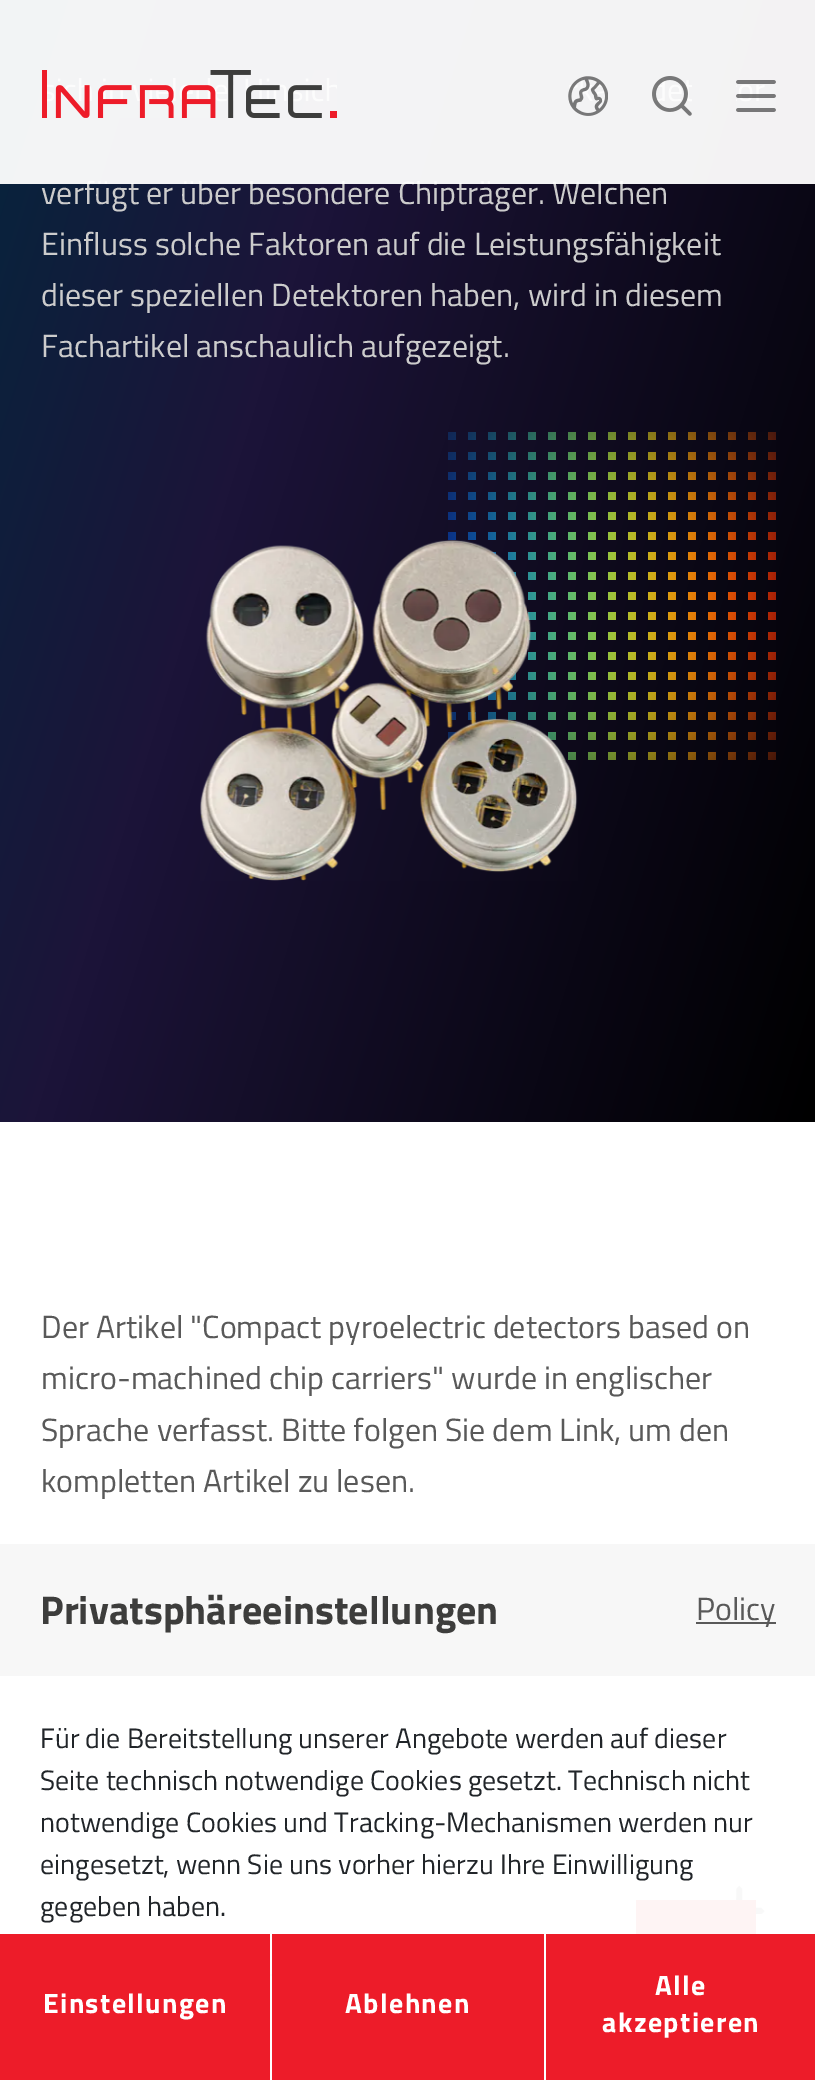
%!PS
<< /PageSize [815 2080] /PageUsesTransparency true >> setpagedevice
/m/moveto load def
/l/rlineto load def
/z/closepath load def
/q/gsave load def
/Q_/grestore load def
/C { dup -16 bitshift 255 div exch dup -8 bitshift 255 and 255 div exch 255 and 255 div setrgbcolor } def
/F { [ exch dup neg 0 0 3 -1 roll 0 0 ] selectfont } def
/T { moveto show } def
/R { rectfill } def
/A { dup .setfillconstantalpha .setstrokeconstantalpha } def
/I { 5 dict begin { /h /w /y /x /name } { exch def } forall
  gsave x y translate w h scale
  w h 8 [w 0 0 h 0 0] name (r) file false 3 colorimage grestore end } def
0 .pushpdf14devicefilter
0 2080 translate 1 -1 scale
4 setmiterlimit
16#FFFFFF C
0 0 815 2080 R
16#F7F7F7 C
0 1544 815 132 R
q 0 0 m 815 0 l 0 1122 l -815 0 l z clip newpath
<< /ShadingType 2 /ColorSpace /DeviceRGB /Coords [-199 104 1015 480] /Extend [true true] /Function << /FunctionType 3 /Domain [0 1] /Functions [<< /FunctionType 2 /Domain [0 1] /C0 [0 .161 .243] /C1 [0 .161 .243] /N 1 >> << /FunctionType 2 /Domain [0 1] /C0 [0 .161 .243] /C1 [.11 .078 .224] /N 1 >> << /FunctionType 2 /Domain [0 1] /C0 [.11 .078 .224] /C1 [0 0 0] /N 1 >>] /Bounds [.05 .41] /Encode [0 1 0 1 0 1] >> >> shfill Q_
/TitilliumWeb-Regular 32 F
16#CCCCCC C
(verfügt er über besondere Chipträger. Welchen) 41 204 T
0.95 A
16#FFFFFF C
0 0 815 184 R
1 A
(1.rgb) 42 70 295 48 I
(2.rgb) 568 76 40 40 I
(3.rgb) 652 76 40 40 I
(4.rgb) 736 80 40 32 I
16#CCCCCC C
(Einfluss solche Faktoren auf die Leistungsfähigkeit) 41 255 T
(dieser speziellen Detektoren haben, wird in diesem) 41 306 T
(Fachartikel anschaulich aufgezeigt.) 41 357 T
(6.rgb) 448 432 328 328 I
(5.rgb) 200 540 378 341 I
16#595959 C
(Der Artikel "Compact pyroelectric detectors based on) 41 1338 T
(micro-machined chip carriers" wurde in englischer) 41 1389 T
(Sprache verfasst. Bitte folgen Sie dem Link, um den) 41 1441 T
(kompletten Artikel zu lesen.) 41 1492 T
(7.rgb) 450 1572 32 32 I
/TitilliumWeb-Bold 40 F
16#3D3D3C C
(Privatsphäreeinstellungen) 40 1624 T
16#595959 C
696 1622 80 2 R
/TitilliumWeb-Regular 32 F
(Policy) 696 1620 T
/TitilliumWeb-Regular 28 F
16#212529 C
(Für die Bereitstellung unserer Angebote werden auf dieser) 40 1748 T
(Seite technisch notwendige Cookies gesetzt. Technisch nicht) 40 1790 T
(notwendige Cookies und Tracking-Mechanismen werden nur) 40 1832 T
(eingesetzt, wenn Sie uns vorher hierzu Ihre Einwilligung) 40 1874 T
(gegeben haben.) 40 1916 T
16#ED1C29 C
0 1934 270 146 R
/TitilliumWeb-Bold 28 F
16#FFFFFF C
43 2013 m 1.4 0 (Einstellungen) ashow
16#ED1C29 C
272 1934 272 146 R
16#FFFFFF C
345 2013 m 1.4 0 (Ablehnen) ashow
16#ED1C29 C
546 1934 269 146 R
16#FFFFFF C
655 1995 m 1.4 0 (Alle) ashow
602 2032 m 1.4 0 (akzeptieren) ashow
16#FCFCFC C
270 1974 2 2 R
(8.rgb) 736 1885 29 29 I
16#FEF4F4 C
636 1900 120 34 R
.poppdf14devicefilter showpage
